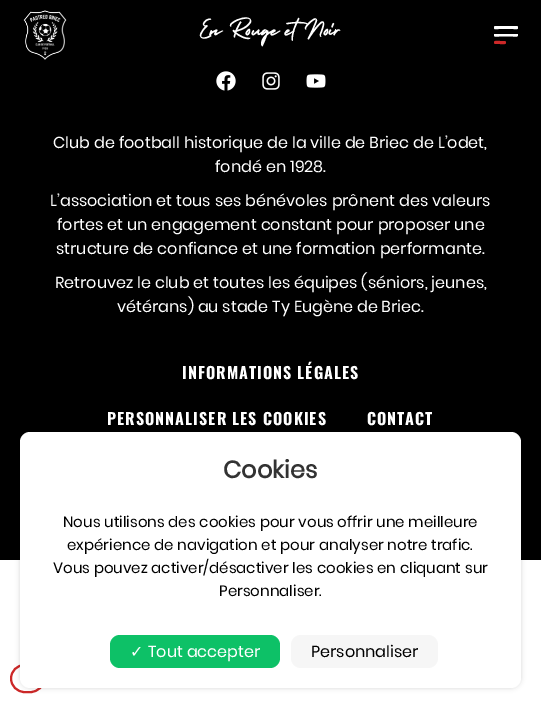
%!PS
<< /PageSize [541 708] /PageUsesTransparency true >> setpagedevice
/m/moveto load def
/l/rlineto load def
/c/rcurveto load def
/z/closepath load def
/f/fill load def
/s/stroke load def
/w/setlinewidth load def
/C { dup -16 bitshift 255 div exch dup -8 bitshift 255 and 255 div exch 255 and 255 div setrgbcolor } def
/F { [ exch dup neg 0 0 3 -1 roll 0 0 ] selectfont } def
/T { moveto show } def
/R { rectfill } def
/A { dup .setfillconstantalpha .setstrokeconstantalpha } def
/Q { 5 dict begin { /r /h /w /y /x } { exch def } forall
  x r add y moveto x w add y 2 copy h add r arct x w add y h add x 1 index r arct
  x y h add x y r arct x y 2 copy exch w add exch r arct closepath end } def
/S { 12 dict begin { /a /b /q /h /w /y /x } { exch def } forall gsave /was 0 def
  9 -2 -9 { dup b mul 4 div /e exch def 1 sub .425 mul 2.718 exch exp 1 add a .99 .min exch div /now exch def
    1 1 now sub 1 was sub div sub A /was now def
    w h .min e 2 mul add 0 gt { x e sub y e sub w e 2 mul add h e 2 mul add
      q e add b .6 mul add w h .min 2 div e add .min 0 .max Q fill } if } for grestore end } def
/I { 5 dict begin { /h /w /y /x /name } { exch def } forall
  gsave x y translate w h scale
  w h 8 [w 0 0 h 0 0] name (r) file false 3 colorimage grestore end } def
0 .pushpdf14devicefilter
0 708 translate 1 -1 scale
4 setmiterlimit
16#FFFFFF C
0 0 541 708 R
16#000000 C
0 0 541 560 R
(1.rgb) 23 10 44 50 I
16#CC2828 C
494 42.5 m 0 1.5 1.5 1.5 2.5 1.5 c 3.5 0 l 1.5 0 6 1 6 -1.5 c 0 -1.5 -1.5 -1.5 -2.5 -1.5 c -3.5 0 l -1.5 0 -6 -1 -6 1.5 c z f
16#FFFFFF C
494 27.5 m 0 2.5 2 1.5 4.5 1.5 c 15 0 l 2 0 4.5 1 4.5 -1.5 c 0 -.5 -.5 -1.5 -1 -1.5 c -22 0 l -.5 0 -1 1 -1 1.5 c z 494 35 m 0 2.5 3 1.5 5 1.5 c 14 0 l 1 0 5 1 5 -1.5 c 0 -1 l -24 0 l z f
/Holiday-Regular 16.5 F
(En Rouge et Noir) 199 34 T
(2.rgb) 216 71 20 20 I
(3.rgb) 262 72 18 18 I
(4.rgb) 306 74 20 14 I
/Poppins-Regular 16 F
(Club de football historique de la ville de Briec de L’odet,) 53 148 T
(fondé en 1928.) 215 172 T
(L’association et tous ses bénévoles prônent des valeurs) 50 206 T
(fortes et un engagement constant pour proposer une) 57 230 T
(structure de confiance et une formation performante.) 56 254 T
(Retrouvez le club et toutes les équipes \(séniors, jeunes,) 55 288 T
(vétérans\) au stade Ty Eugène de Briec.) 117 312 T
/Oswald-Bold 16 F
182 379 m 1 0 (INFORMATIONS LÉGALES) ashow
107 425 m 1 0 (PERSONNALISER LES COOKIES) ashow
367 425 m 1 0 (CONTACT) ashow
16#CC2828 C
2 w
11 665 33 27 13.5 Q s
16#000000 C
20 432 501 256 10 2.5 .15 S
16#FFFFFF C
20 432 501 256 10 Q f
/Poppins-Bold 24 F
16#333333 C
(Cookies) 223 478 T
/Poppins-Regular 15 F
16#000000 C
(Nous utilisons des cookies pour vous offrir une meilleure) 63 527 T
(expérience de navigation et pour analyser notre trafic.) 67 550 T
(Vous pouvez activer/désactiver les cookies en cliquant sur) 53 573 T
(Personnaliser.) 219 596 T
16#0DC167 C
110 635 170 33 10 Q f
/DejaVuSans-Regular 16 F
16#FFFFFF C
(✓) 130 657 T
/Poppins-Regular 16 F
(Tout accepter) 148 657 T
16#F6F6F6 C
291 635 147 33 10 Q f
16#000000 C
(Personnaliser) 311 657 T
.poppdf14devicefilter showpage
